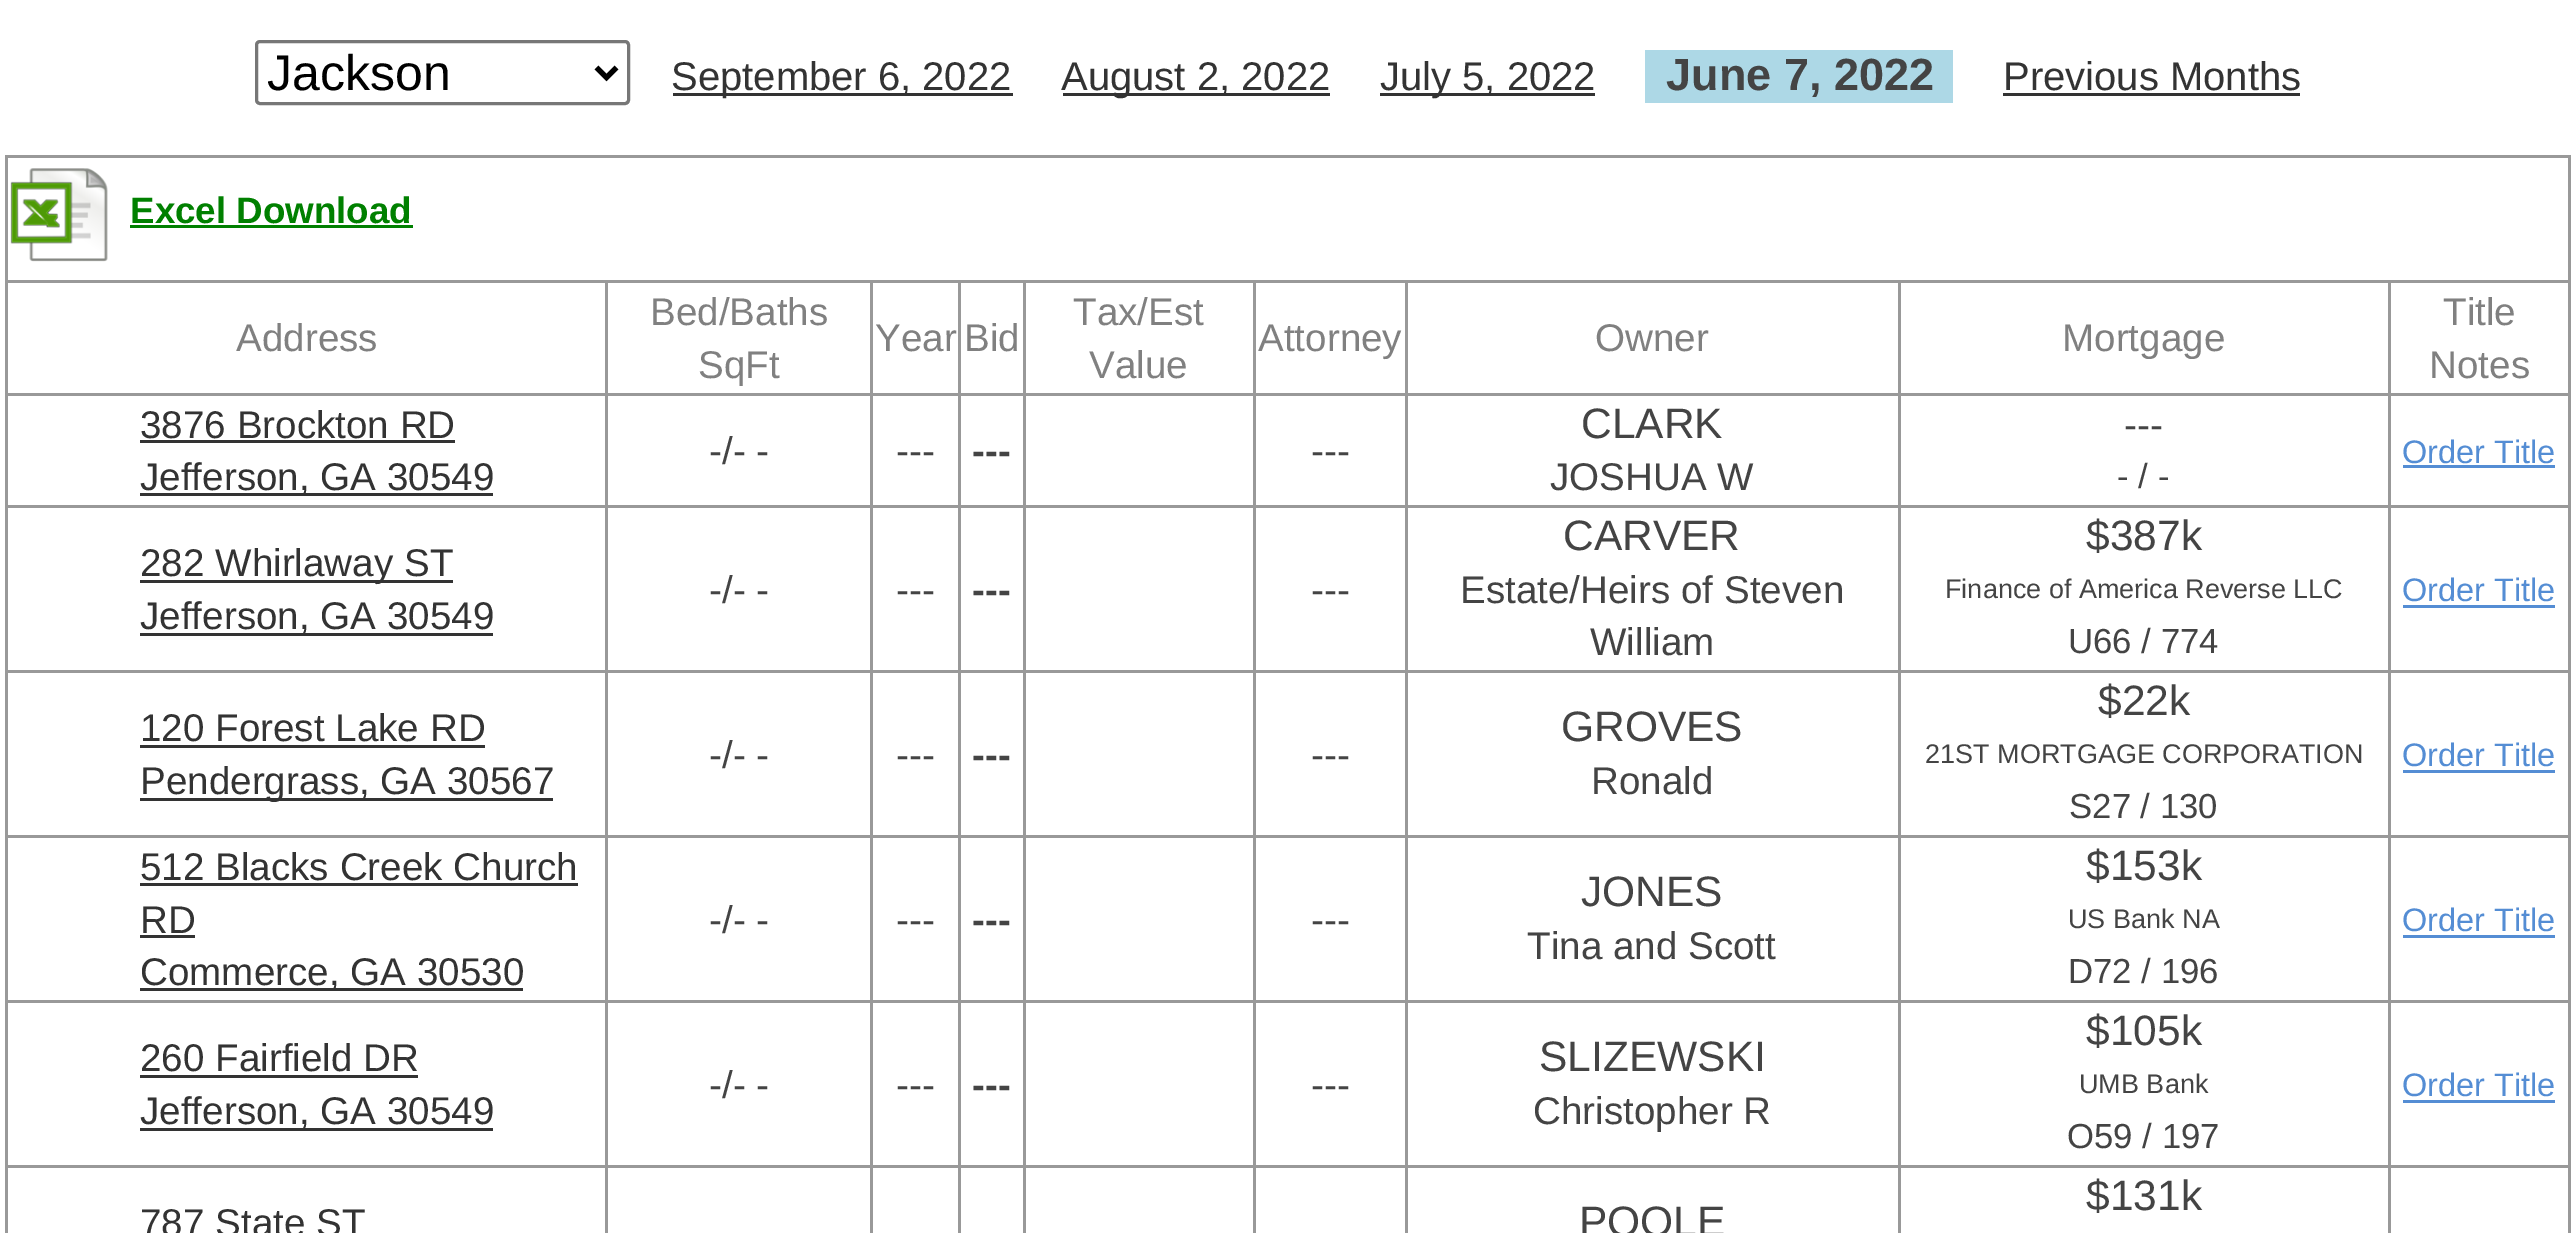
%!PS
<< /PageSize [2575 1233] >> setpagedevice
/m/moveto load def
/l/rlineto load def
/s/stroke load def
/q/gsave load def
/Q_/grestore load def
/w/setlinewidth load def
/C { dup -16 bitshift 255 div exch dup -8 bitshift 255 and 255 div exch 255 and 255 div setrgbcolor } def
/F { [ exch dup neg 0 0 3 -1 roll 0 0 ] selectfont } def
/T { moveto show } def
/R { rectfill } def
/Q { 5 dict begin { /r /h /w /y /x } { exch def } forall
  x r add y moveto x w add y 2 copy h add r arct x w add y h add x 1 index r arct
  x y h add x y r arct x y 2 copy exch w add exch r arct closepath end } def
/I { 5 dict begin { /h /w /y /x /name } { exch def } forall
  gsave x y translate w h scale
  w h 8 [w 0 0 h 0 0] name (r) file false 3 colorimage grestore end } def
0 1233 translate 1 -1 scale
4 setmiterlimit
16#FFFFFF C
0 0 2575 1233 R
16#777777 C
3 w
256.5 41.5 372 62 3.5 Q s
16#000000 C
5 w
596.5 67.5 m 10 10 l 10 -10 l s
q
268 43 320 60 rectclip
/LiberationSans-Regular 50 F
(Jackson) 267 90 T
Q_
16#333333 C
673 93 340 3 R
/LiberationSans-Regular 40 F
(September 6, 2022) 671 90 T
1063 93 267 3 R
(August 2, 2022) 1061 90 T
1380 93 215 3 R
(July 5, 2022) 1380 90 T
16#ADD8E6 C
1645 50 308 53 R
/LiberationSans-Bold 45 F
16#444444 C
(June 7, 2022) 1666 90 T
/LiberationSans-Regular 40 F
16#333333 C
(Previous Months) 2003 90 T
2003 93 297 3 R
16#999999 C
5 155 2565 3 R
2568 155 3 1078 R
5 155 3 1078 R
(1.rgb) 10 168 98 94 I
/LiberationSans-Bold 36.75 F
16#008000 C
(Excel Download) 130 223 T
130 225 283 3 R
16#999999 C
2388 280 182 3 R
2388 393 182 3 R
2388 505 182 3 R
2388 670 182 3 R
2388 835 182 3 R
2388 1000 182 3 R
2388 1165 182 3 R
2388 1165 3 68 R
1898 1165 492 3 R
2388 1000 3 168 R
1898 1000 492 3 R
2388 835 3 168 R
1898 835 492 3 R
2388 670 3 168 R
1898 670 492 3 R
2388 505 3 168 R
1898 505 492 3 R
2388 393 3 115 R
1898 393 492 3 R
2388 280 3 115 R
1898 280 492 3 R
1898 1165 3 68 R
1405 1165 495 3 R
1898 1000 3 168 R
1405 1000 495 3 R
1898 835 3 168 R
1405 835 495 3 R
1898 670 3 168 R
1405 670 495 3 R
1898 505 3 168 R
1405 505 495 3 R
1898 393 3 115 R
1405 393 495 3 R
1898 280 3 115 R
1405 280 495 3 R
1405 1165 3 68 R
1253 1165 155 3 R
1405 1000 3 168 R
1253 1000 155 3 R
1405 835 3 168 R
1253 835 155 3 R
1405 670 3 168 R
1253 670 155 3 R
1405 505 3 168 R
1253 505 155 3 R
1405 393 3 115 R
1253 393 155 3 R
1405 280 3 115 R
1253 280 155 3 R
1253 1165 3 68 R
1023 1165 232 3 R
1253 1000 3 168 R
1023 1000 232 3 R
1253 835 3 168 R
1023 835 232 3 R
1253 670 3 168 R
1023 670 232 3 R
1253 505 3 168 R
1023 505 232 3 R
1253 393 3 115 R
1023 393 232 3 R
1253 280 3 115 R
1023 280 232 3 R
1023 1165 3 68 R
958 1165 67 3 R
1023 1000 3 168 R
958 1000 67 3 R
1023 835 3 168 R
958 835 67 3 R
1023 670 3 168 R
958 670 67 3 R
1023 505 3 168 R
958 505 67 3 R
1023 393 3 115 R
958 393 67 3 R
1023 280 3 115 R
958 280 67 3 R
958 1165 3 68 R
870 1165 90 3 R
958 1000 3 168 R
870 1000 90 3 R
958 835 3 168 R
870 835 90 3 R
958 670 3 168 R
870 670 90 3 R
958 505 3 168 R
870 505 90 3 R
958 393 3 115 R
870 393 90 3 R
958 280 3 115 R
870 280 90 3 R
870 1165 3 68 R
605 1165 268 3 R
870 1000 3 168 R
605 1000 268 3 R
870 835 3 168 R
605 835 268 3 R
870 670 3 168 R
605 670 268 3 R
870 505 3 168 R
605 505 268 3 R
870 393 3 115 R
605 393 268 3 R
870 280 3 115 R
605 280 268 3 R
605 1165 3 68 R
5 1165 603 3 R
605 1000 3 168 R
5 1000 603 3 R
605 835 3 168 R
5 835 603 3 R
605 670 3 168 R
5 670 603 3 R
605 505 3 168 R
5 505 603 3 R
605 393 3 115 R
5 393 603 3 R
605 280 3 115 R
5 280 603 3 R
/LiberationSans-Regular 38.6 F
16#808080 C
(Address) 236 351 T
(Bed/Baths) 650 325 T
(SqFt) 698 378 T
(Year) 875 351 T
(Bid) 964 351 T
(Tax/Est) 1073 325 T
(Value) 1089 378 T
(Attorney) 1258 351 T
(Owner) 1595 351 T
(Mortgage) 2062 351 T
(Title) 2443 325 T
(Notes) 2429 378 T
16#333333 C
(3876 Brockton RD) 140 438 T
140 440 315 3 R
140 493 353 3 R
(Jefferson, GA 30549) 140 490 T
16#444444 C
(-/- -) 709 464 T
(---) 896 464 T
/LiberationSans-Bold 38.6 F
(---) 972 464 T
/LiberationSans-Regular 38.6 F
(---) 1311 464 T
/LiberationSans-Regular 42.5 F
(CLARK) 1581 438 T
/LiberationSans-Regular 38.6 F
(JOSHUA W) 1550 490 T
(---) 2124 438 T
/LiberationSans-Regular 34.75 F
(- / -) 2117 488 T
/LiberationSans-Regular 32.5 F
16#548DD4 C
(Order Title) 2402 463 T
2403 465 152 3 R
16#333333 C
140 580 313 3 R
/LiberationSans-Regular 38.6 F
(282 Whirlaway ST) 140 576 T
140 633 353 3 R
(Jefferson, GA 30549) 140 629 T
16#444444 C
(-/- -) 709 603 T
(---) 896 603 T
/LiberationSans-Bold 38.6 F
(---) 972 603 T
/LiberationSans-Regular 38.6 F
(---) 1311 603 T
/LiberationSans-Regular 42.5 F
(CARVER) 1563 550 T
/LiberationSans-Regular 38.6 F
(Estate/Heirs of Steven) 1460 603 T
(William) 1590 655 T
/LiberationSans-Regular 42.5 F
($387k) 2086 550 T
/LiberationSans-Regular 27 F
(Finance of America Reverse LLC) 1945 598 T
/LiberationSans-Regular 34.75 F
(U66 / 774) 2068 653 T
/LiberationSans-Regular 32.5 F
16#548DD4 C
(Order Title) 2402 601 T
2403 605 152 3 R
/LiberationSans-Regular 38.6 F
16#333333 C
(120 Forest Lake RD) 140 741 T
140 745 345 3 R
140 798 413 3 R
(Pendergrass, GA 30567) 140 794 T
16#444444 C
(-/- -) 709 768 T
(---) 896 768 T
/LiberationSans-Bold 38.6 F
(---) 972 768 T
/LiberationSans-Regular 38.6 F
(---) 1311 768 T
/LiberationSans-Regular 42.5 F
(GROVES) 1561 741 T
/LiberationSans-Regular 38.6 F
(Ronald) 1591 794 T
/LiberationSans-Regular 42.5 F
($22k) 2098 715 T
/LiberationSans-Regular 27 F
(21ST MORTGAGE CORPORATION) 1925 763 T
/LiberationSans-Regular 34.75 F
(S27 / 130) 2069 818 T
/LiberationSans-Regular 32.5 F
16#548DD4 C
(Order Title) 2402 766 T
2403 770 152 3 R
/LiberationSans-Regular 38.6 F
16#333333 C
(512 Blacks Creek Church) 140 880 T
140 883 438 3 R
(RD) 140 933 T
140 935 55 3 R
140 988 383 3 R
(Commerce, GA 30530) 140 985 T
16#444444 C
(-/- -) 709 933 T
(---) 896 933 T
/LiberationSans-Bold 38.6 F
(---) 972 933 T
/LiberationSans-Regular 38.6 F
(---) 1311 933 T
/LiberationSans-Regular 42.5 F
(JONES) 1581 906 T
/LiberationSans-Regular 38.6 F
(Tina and Scott) 1527 959 T
/LiberationSans-Regular 42.5 F
($153k) 2086 880 T
/LiberationSans-Regular 27 F
(US Bank NA) 2068 928 T
/LiberationSans-Regular 34.75 F
(D72 / 196) 2068 983 T
/LiberationSans-Regular 32.5 F
16#548DD4 C
(Order Title) 2402 931 T
2403 935 152 3 R
/LiberationSans-Regular 38.6 F
16#333333 C
(260 Fairfield DR) 140 1071 T
140 1075 278 3 R
140 1128 353 3 R
(Jefferson, GA 30549) 140 1124 T
16#444444 C
(-/- -) 709 1098 T
(---) 896 1098 T
/LiberationSans-Bold 38.6 F
(---) 972 1098 T
/LiberationSans-Regular 38.6 F
(---) 1311 1098 T
/LiberationSans-Regular 42.5 F
(SLIZEWSKI) 1539 1071 T
/LiberationSans-Regular 38.6 F
(Christopher R) 1533 1124 T
/LiberationSans-Regular 42.5 F
($105k) 2086 1045 T
/LiberationSans-Regular 27 F
(UMB Bank) 2079 1093 T
/LiberationSans-Regular 34.75 F
(O59 / 197) 2067 1148 T
/LiberationSans-Regular 32.5 F
16#548DD4 C
(Order Title) 2402 1096 T
2403 1100 152 3 R
/LiberationSans-Regular 42.5 F
16#444444 C
($131k) 2086 1210 T
/LiberationSans-Regular 38.6 F
16#333333 C
(787 State ST) 140 1236 T
/LiberationSans-Regular 42.5 F
16#444444 C
(POOLE) 1579 1236 T
showpage
